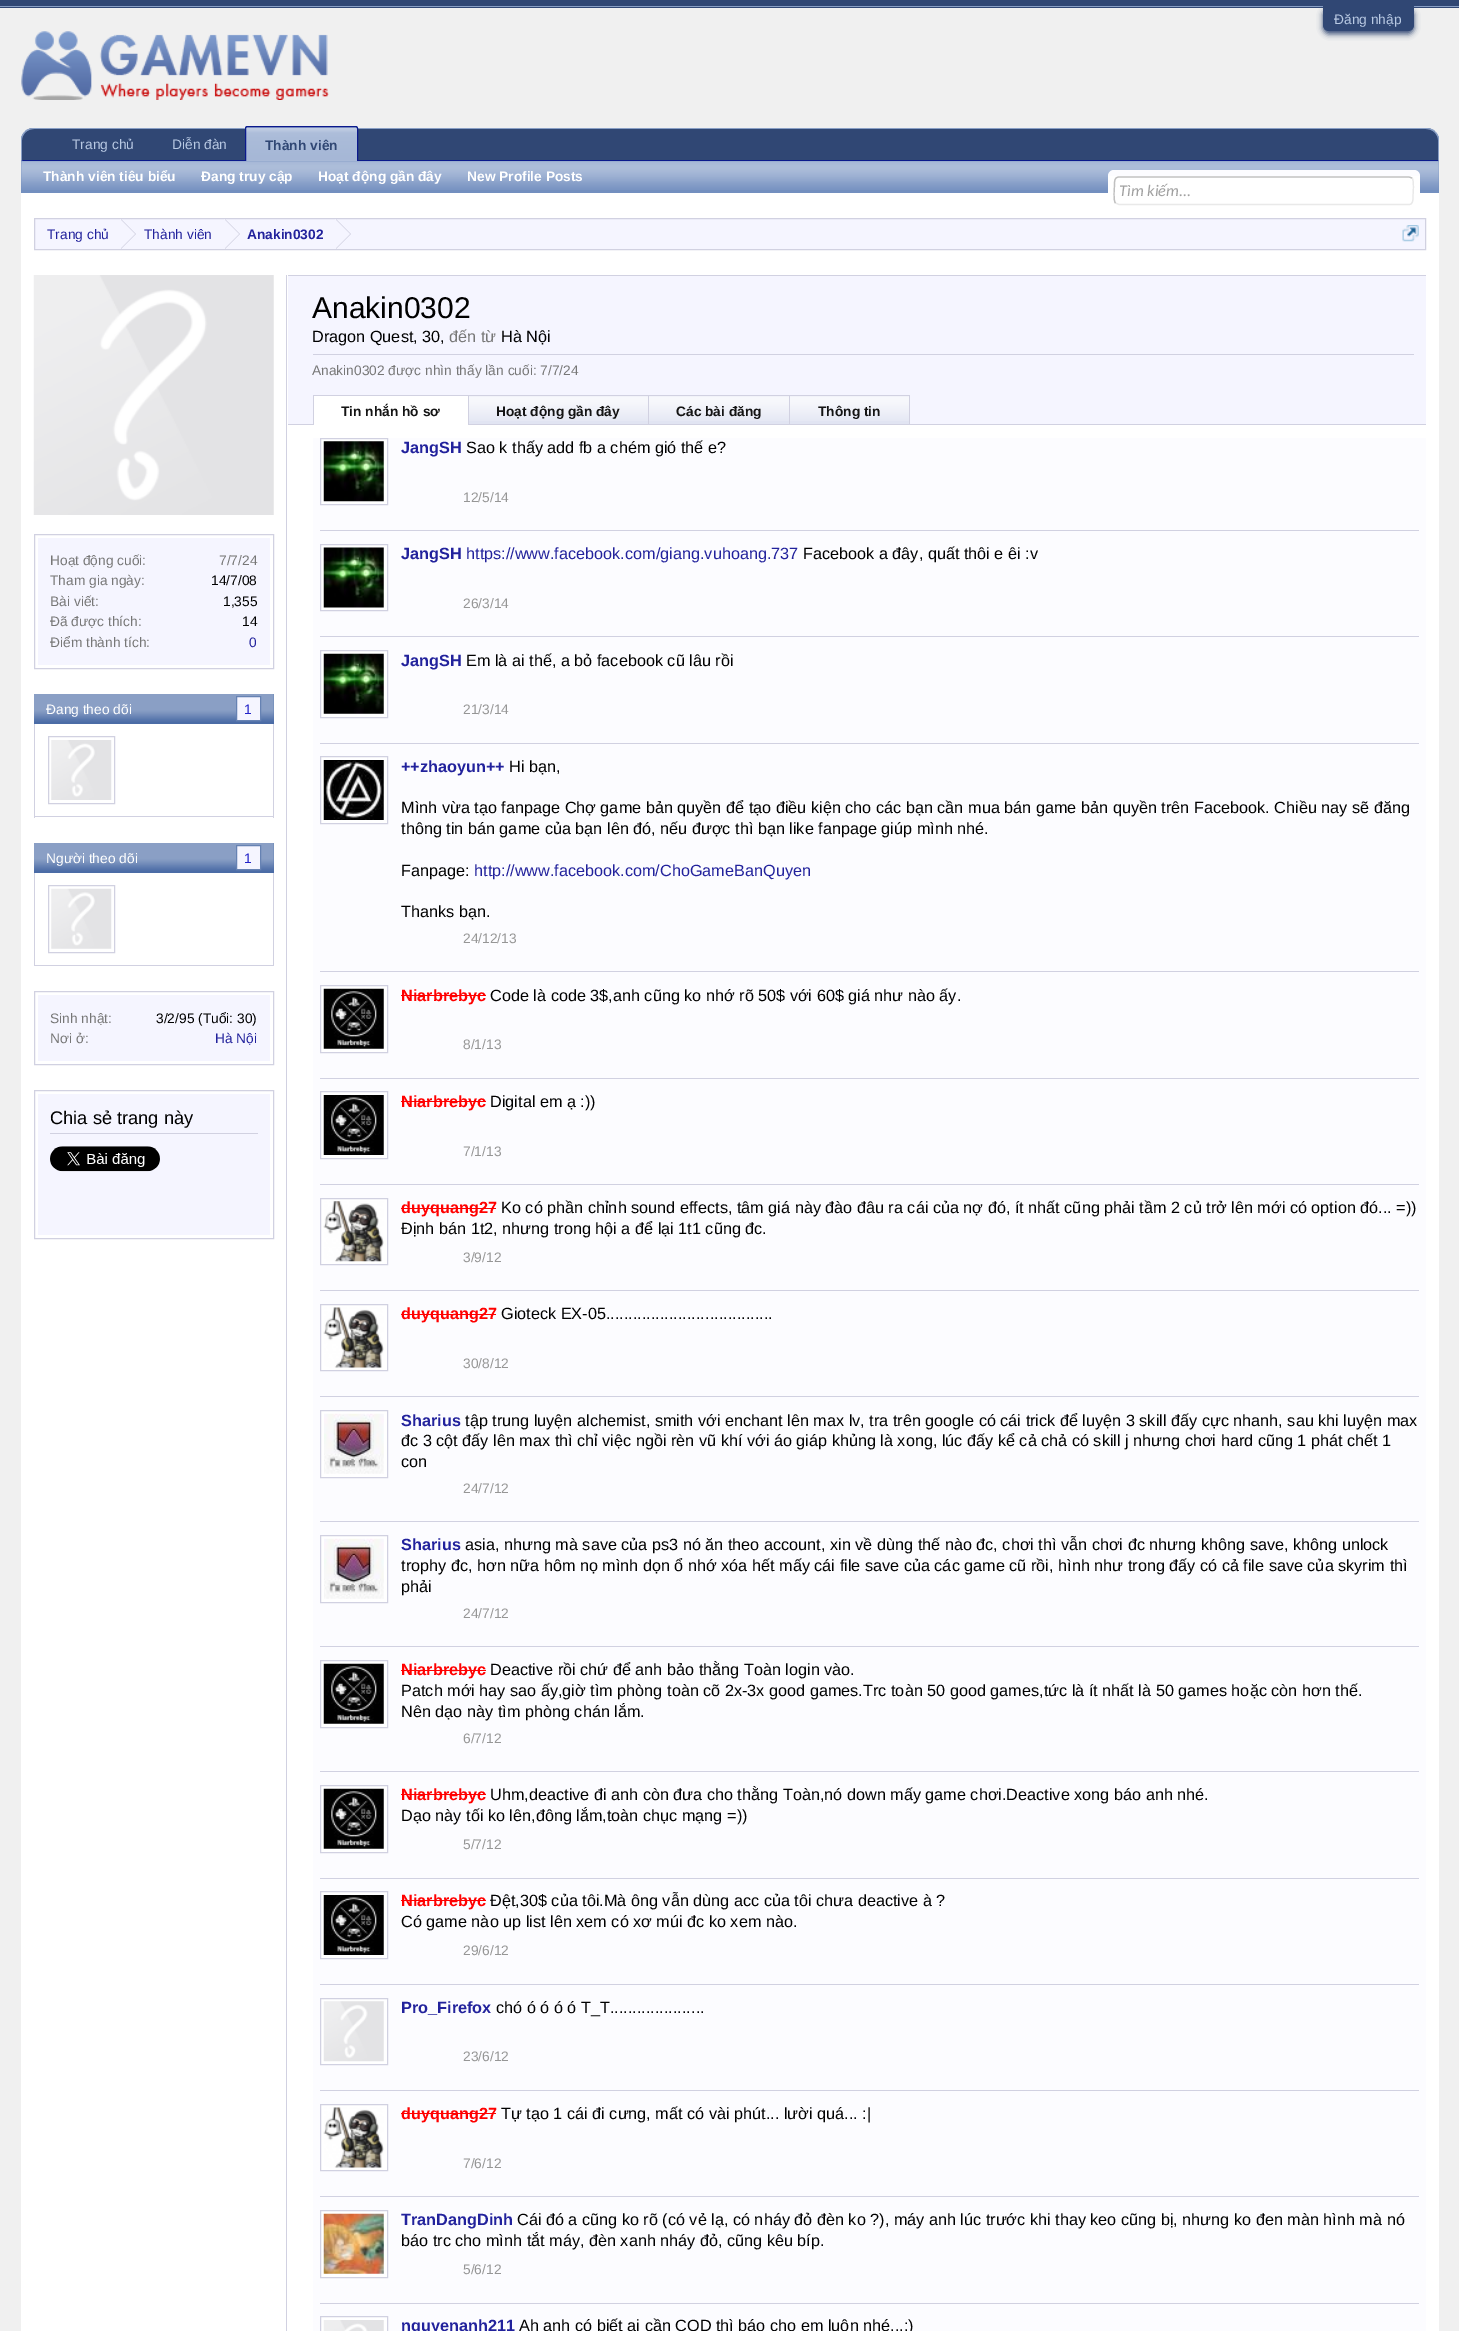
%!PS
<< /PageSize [1459 2331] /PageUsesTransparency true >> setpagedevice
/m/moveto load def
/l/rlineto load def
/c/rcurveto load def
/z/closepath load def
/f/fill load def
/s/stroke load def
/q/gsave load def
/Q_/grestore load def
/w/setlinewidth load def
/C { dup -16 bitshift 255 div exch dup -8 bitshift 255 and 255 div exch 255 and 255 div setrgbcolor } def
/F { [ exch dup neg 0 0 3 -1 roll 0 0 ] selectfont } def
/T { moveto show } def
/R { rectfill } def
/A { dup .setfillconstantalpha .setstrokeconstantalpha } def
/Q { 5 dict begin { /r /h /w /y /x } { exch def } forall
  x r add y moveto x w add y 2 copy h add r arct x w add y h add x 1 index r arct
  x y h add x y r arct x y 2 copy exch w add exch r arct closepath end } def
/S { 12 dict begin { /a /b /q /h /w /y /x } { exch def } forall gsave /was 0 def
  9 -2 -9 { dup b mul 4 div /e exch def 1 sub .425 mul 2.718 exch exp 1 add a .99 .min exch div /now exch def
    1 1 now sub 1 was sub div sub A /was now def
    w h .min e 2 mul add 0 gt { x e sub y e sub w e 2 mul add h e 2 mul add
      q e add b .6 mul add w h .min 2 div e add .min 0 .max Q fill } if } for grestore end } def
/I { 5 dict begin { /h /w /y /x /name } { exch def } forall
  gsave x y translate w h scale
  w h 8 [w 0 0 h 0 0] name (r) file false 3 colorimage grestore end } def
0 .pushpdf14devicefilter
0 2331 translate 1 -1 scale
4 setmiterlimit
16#F0F0F0 C
0 0 1459 2331 R
16#304774 C
0 0 1459 8 R
16#899FC5 C
0 6 1459 1 R
16#304774 C
1323 9 91 25 6 3 1 S
1323 6 m 91 0 l 0 19 l 0 3.5 -2.5 6 -6 6 c -79 0 l -3.5 0 -6 -2.5 -6 -6 c z f
/LiberationSans-Regular 13.75 F
16#B8C9E3 C
(Đăng nhập) 1334 24 T
(1.rgb) 21 31 308 69 I
16#304774 C
34 128 m 1392 0 l 7 0 13 6 13 13 c 0 20 l -1418 0 l 0 -20 l 0 -7 6 -13 13 -13 c z f
16#899FC5 C
34 128 m -3 0 -7 1 -9 3 c 1 1 l 2 -2 5 -3 8 -3 c 1392 0 l 3 0 6 1 8 3 c 1 -1 l -2 -2 -6 -3 -9 -3 c z f
1435 131.5 m 2 1.5 3 3.5 4 6 c 0 23.5 l -1.5 -1 l .5 0 l 0 -20 l 0 -3 -1.5 -6 -4 -8 c z f
16#0B198C C
22 160 1416 1 R
16#899FC5 C
21 137.5 m 1 -2.5 2 -4.5 4 -6 c 1 .5 l -2.5 2 -4 5 -4 8 c 0 20 l .5 0 l -1.5 1 l z f
16#B8C9E3 C
(Trang chủ) 72 149 T
(Diễn đàn) 172 149 T
16#738FBF C
247.5 126 m 108 0 l 1.5 0 2.5 1 2.5 2.5 c 0 34.5 l -113 0 l 0 -34.5 l 0 -1.5 1 -2.5 2.5 -2.5 c z f
(2.rgb) 245 127 113 34 I
16#0B198C C
247.5 126.5 m 108 0 l 1 0 2 1 2 2 c 0 34 l -112 0 l 0 -34 l 0 -1 1 -2 2 -2 c z s
/LiberationSans-Bold 13.75 F
16#304774 C
(Thành viên) 265 150 T
16#738FBF C
21 161 1418 32 R
(3.rgb) 21 161 1418 29 I
16#FFFFFF C
(Thành viên tiêu biểu) 43 181 T
(Đang truy cập) 201 181 T
(Hoạt động gần đây) 318 181 T
(New Profile Posts) 467 181 T
21 193 1418 2138 R
16#FCFCFF C
1108 170 312 35 6 Q f
16#FFFFFF C
1108 176 312 29 R
16#E9E9E9 C
1.2 w
1412 178 m 2.5 3 1 15 1 19 c 0 3 0 7.5 -4 7.5 c -290 0 l -3.5 -1.5 l s
16#C0C0C0 C
1115.5 203 m -2.5 -2.5 -1 -15 -1 -18.5 c 0 -3.5 0 -7.5 4.5 -7.5 c 290 0 l 3 1 l s
/Carlito-Italic 16.25 F
16#A0A0A0 C
(Tìm kiếm...) 1119 196 T
16#F5F5FF C
34.5 218.5 m 1391 0 l 0 31 l -1391 0 l z q f Q_
16#D1D1E1 C
1 w
s
/LiberationSans-Regular 13.75 F
16#22229C C
(Trang chủ) 47 239 T
16#D1D1E1 C
121 249 m 0 -30 l 15 15 l z f
16#F5F5FF C
120 249 m 0 -30 l 15 15 l z f
16#22229C C
(Thành viên) 144 239 T
16#D1D1E1 C
225 249 m 0 -30 l 15 15 l z f
16#F5F5FF C
224 249 m 0 -30 l 15 15 l z f
/LiberationSans-Bold 13.75 F
16#22229C C
(Anakin0302) 247 239 T
16#D1D1E1 C
336 249 m 0 -30 l 15 15 l z f
16#F5F5FF C
335 249 m 0 -30 l 15 15 l z f
(4.rgb) 1402 225 17 17 I
(5.rgb) 33 275 241 240 I
16#D1D1E1 C
34.5 534.5 239 134 rectstroke
16#F5F5FF C
38 538 232 127 R
/LiberationSans-Regular 13.75 F
16#777777 C
(Hoạt động cuối:) 50 565 T
(7/7/24) 219 565 T
(Tham gia ngày:) 50 585 T
16#000000 C
(14/7/08) 211 585 T
16#777777 C
(Bài viết:) 50 606 T
16#000000 C
(1,355) 223 606 T
16#777777 C
(Đã được thích:) 50 626 T
16#000000 C
(14) 242 626 T
16#777777 C
(Điểm thành tích:) 50 647 T
16#22229C C
(0) 249 647 T
16#4B6CA6 C
34 694 240 30 R
(6.rgb) 34 694 240 28 I
16#FFFFFF C
(Đang theo dõi) 46 714 T
16#F5F5FF C
236.5 696.5 m 24 0 l 0 24 l -24 0 l z q f Q_
16#6682B3 C
s
16#2222C9 C
(1) 244 714 T
16#D1D1E1 C
273 724 1 94 R
34 816 240 1 R
34 724 1 94 R
(7.rgb) 51 740 61 60 I
48.5 736.5 66 67 rectstroke
16#4B6CA6 C
34 843 240 30 R
(8.rgb) 34 843 240 28 I
16#FFFFFF C
(Người theo dõi) 46 863 T
16#F5F5FF C
236.5 845.5 m 24 0 l 0 24 l -24 0 l z q f Q_
16#6682B3 C
s
16#2222C9 C
(1) 244 863 T
16#D1D1E1 C
273 873 1 93 R
34 965 240 1 R
34 873 1 93 R
(9.rgb) 51 888 61 61 I
48.5 885.5 66 67 rectstroke
34.5 991.5 239 73 rectstroke
16#F5F5FF C
38 995 232 66 R
16#777777 C
(Sinh nhật:) 50 1023 T
16#000000 C
(3/2/95 \(Tuổi: 30\)) 156 1023 T
16#777777 C
(Nơi ở:) 50 1043 T
16#22229C C
(Hà Nội) 215 1043 T
16#D1D1E1 C
34.5 1090.5 239 148 rectstroke
16#F5F5FF C
38 1094 232 141 R
16#D1D1E1 C
50 1133 208 1 R
/LiberationSans-Regular 18.25 F
16#000000 C
(Chia sẻ trang này) 50 1124 T
(10.rgb) 50 1146 110 26 I
16#D1D1E1 C
286 275 1 2056 R
288 275 1138 1 R
16#F5F5FF C
288 276 1138 148 R
/LiberationSans-Regular 30 F
16#000000 C
(Anakin0302) 312 318 T
/LiberationSans-Regular 16.25 F
(Dragon Quest, 30,) 312 342 T
16#777777 C
(đến từ) 449 342 T
16#000000 C
(Hà Nội) 501 342 T
16#D1D1E1 C
313 354 1101 1 R
/LiberationSans-Regular 13.75 F
16#777777 C
(Anakin0302 được nhìn thấy lần cuối: 7/7/24) 312 375 T
16#D1D1E1 C
288 424 1138 1 R
16#FFFFFF C
314 396 154 29 R
16#D1D1E1 C
313 395 597 1 R
313 395 1 30 R
/LiberationSans-Bold 13.75 F
16#141414 C
(Tin nhắn hồ sơ) 341 416 T
16#E1E4F2 C
469 396 179 28 R
(11.rgb) 469 396 179 25 I
16#D1D1E1 C
468 395 1 29 R
16#141414 C
(Hoạt động gần đây) 496 416 T
16#E1E4F2 C
649 396 140 28 R
(12.rgb) 649 396 140 25 I
16#D1D1E1 C
648 395 1 29 R
16#141414 C
(Các bài đăng) 676 416 T
16#E1E4F2 C
790 396 119 28 R
(13.rgb) 790 396 119 25 I
16#D1D1E1 C
909 395 1 29 R
789 395 1 29 R
16#141414 C
(Thông tin) 818 416 T
16#FCFCFF C
313 438 1113 1893 R
16#D1D1E1 C
320 530 1099 1 R
16#FFFFFF C
320.5 438.5 m 67 0 l 0 66 l -67 0 l z q f Q_
16#D1D1E1 C
s
(14.rgb) 323 441 61 61 I
/LiberationSans-Bold 16.25 F
16#22229C C
(JangSH) 401 453 T
/LiberationSans-Regular 16.25 F
16#000000 C
(Sao k thấy add fb a chém gió thế e?) 466 453 T
/LiberationSans-Regular 13.75 F
16#969696 C
(12/5/14) 463 502 T
16#D1D1E1 C
320 636 1099 1 R
16#FFFFFF C
320.5 544.5 m 67 0 l 0 66 l -67 0 l z q f Q_
16#D1D1E1 C
s
(15.rgb) 323 547 61 61 I
/LiberationSans-Bold 16.25 F
16#22229C C
(JangSH) 401 559 T
/LiberationSans-Regular 16.25 F
(https://www.facebook.com/giang.vuhoang.737) 466 559 T
16#000000 C
(Facebook a đây, quất thôi e êi :v) 803 559 T
/LiberationSans-Regular 13.75 F
16#969696 C
(26/3/14) 463 608 T
16#D1D1E1 C
320 743 1099 1 R
16#FFFFFF C
320.5 650.5 m 67 0 l 0 67 l -67 0 l z q f Q_
16#D1D1E1 C
s
(16.rgb) 323 653 61 61 I
/LiberationSans-Bold 16.25 F
16#22229C C
(JangSH) 401 666 T
/LiberationSans-Regular 16.25 F
16#000000 C
(Em là ai thế, a bỏ facebook cũ lâu rồi) 466 666 T
/LiberationSans-Regular 13.75 F
16#969696 C
(21/3/14) 463 714 T
16#D1D1E1 C
320 971 1099 1 R
16#FFFFFF C
320.5 756.5 m 67 0 l 0 67 l -67 0 l z q f Q_
16#D1D1E1 C
s
(17.rgb) 323 760 61 60 I
/LiberationSans-Bold 16.25 F
16#22229C C
(++zhaoyun++) 401 772 T
/LiberationSans-Regular 16.25 F
16#000000 C
(Hi bạn,) 509 772 T
(Mình vừa tạo fanpage Chợ game bản quyền để tạo điều kiện cho các bạn cần mua bán game bản quyền trên Facebook. Chiều nay sẽ đăng) 401 813 T
(thông tin bán game của bạn lên đó, nếu được thì bạn like fanpage giúp mình nhé.) 401 834 T
(Fanpage:) 401 876 T
16#22229C C
(http://www.facebook.com/ChoGameBanQuyen) 474 876 T
16#000000 C
(Thanks bạn.) 401 917 T
/LiberationSans-Regular 13.75 F
16#969696 C
(24/12/13) 463 943 T
16#D1D1E1 C
320 1078 1099 1 R
16#FFFFFF C
320.5 985.5 m 67 0 l 0 67 l -67 0 l z q f Q_
16#D1D1E1 C
s
(18.rgb) 323 988 61 61 I
/LiberationSans-Bold 16.25 F
16#FF0000 C
(Niarbrebyc) 401 1001 T
401 995 85 1 R
/LiberationSans-Regular 16.25 F
16#000000 C
(Code là code 3$,anh cũng ko nhớ rõ 50$ với 60$ giá như nào ấy.) 490 1001 T
/LiberationSans-Regular 13.75 F
16#969696 C
(8/1/13) 463 1049 T
16#D1D1E1 C
320 1184 1099 1 R
16#FFFFFF C
320.5 1091.5 m 67 0 l 0 67 l -67 0 l z q f Q_
16#D1D1E1 C
s
(19.rgb) 323 1095 61 60 I
/LiberationSans-Bold 16.25 F
16#FF0000 C
(Niarbrebyc) 401 1107 T
401 1101 85 1 R
/LiberationSans-Regular 16.25 F
16#000000 C
(Digital em ạ :\)\)) 490 1107 T
/LiberationSans-Regular 13.75 F
16#969696 C
(7/1/13) 463 1156 T
16#D1D1E1 C
320 1290 1099 1 R
16#FFFFFF C
320.5 1198.5 m 67 0 l 0 66 l -67 0 l z q f Q_
16#D1D1E1 C
s
(20.rgb) 323 1201 61 61 I
/LiberationSans-Bold 16.25 F
16#FF0000 C
(duyquang27) 401 1213 T
401 1208 95 1 R
/LiberationSans-Regular 16.25 F
16#000000 C
(Ko có phần chỉnh sound effects, tâm giá này đào đâu ra cái của nợ đó, ít nhất cũng phải tầm 2 củ trở lên mới có option đó... =\)\)) 501 1213 T
(Định bán 1t2, nhưng trong hội a để lại 1t1 cũng đc.) 401 1234 T
/LiberationSans-Regular 13.75 F
16#969696 C
(3/9/12) 463 1262 T
16#D1D1E1 C
320 1396 1099 1 R
16#FFFFFF C
320.5 1304.5 m 67 0 l 0 66 l -67 0 l z q f Q_
16#D1D1E1 C
s
(21.rgb) 323 1307 61 61 I
/LiberationSans-Bold 16.25 F
16#FF0000 C
(duyquang27) 401 1319 T
401 1314 95 1 R
/LiberationSans-Regular 16.25 F
16#000000 C
(Gioteck EX-05.....................................) 501 1319 T
/LiberationSans-Regular 13.75 F
16#969696 C
(30/8/12) 463 1368 T
16#D1D1E1 C
320 1521 1099 1 R
16#FFFFFF C
320.5 1410.5 m 67 0 l 0 67 l -67 0 l z q f Q_
16#D1D1E1 C
s
(22.rgb) 324 1413 60 61 I
/LiberationSans-Bold 16.25 F
16#22229C C
(Sharius) 401 1426 T
/LiberationSans-Regular 16.25 F
16#000000 C
(tập trung luyện alchemist, smith với enchant lên max lv, tra trên google có cái trick để luyện 3 skill đấy cực nhanh, sau khi luyện max) 465 1426 T
(đc 3 cột đấy lên max thì chỉ việc ngồi rèn vũ khí với áo giáp khủng là xong, lúc đấy kể cả chả có skill j nhưng chơi hard cũng 1 phát chết 1) 401 1446 T
(con) 401 1467 T
/LiberationSans-Regular 13.75 F
16#969696 C
(24/7/12) 463 1493 T
16#D1D1E1 C
320 1646 1099 1 R
16#FFFFFF C
320.5 1535.5 m 67 0 l 0 67 l -67 0 l z q f Q_
16#D1D1E1 C
s
(22.rgb) 324 1538 60 61 I
/LiberationSans-Bold 16.25 F
16#22229C C
(Sharius) 401 1550 T
/LiberationSans-Regular 16.25 F
16#000000 C
(asia, nhưng mà save của ps3 nó ăn theo account, xin về dùng thế nào đc, chơi thì vẫn chơi đc nhưng không save, không unlock) 465 1550 T
(trophy đc, hơn nữa hôm nọ mình dọn ổ nhớ xóa hết mấy cái file save của các game cũ rồi, hình như trong đấy có cả file save của skyrim thì) 401 1571 T
(phải) 401 1592 T
/LiberationSans-Regular 13.75 F
16#969696 C
(24/7/12) 463 1618 T
16#D1D1E1 C
320 1771 1099 1 R
16#FFFFFF C
320.5 1660.5 m 67 0 l 0 67 l -67 0 l z q f Q_
16#D1D1E1 C
s
(18.rgb) 323 1663 61 61 I
/LiberationSans-Bold 16.25 F
16#FF0000 C
(Niarbrebyc) 401 1675 T
401 1670 85 1 R
/LiberationSans-Regular 16.25 F
16#000000 C
(Deactive rồi chứ để anh bảo thằng Toàn login vào.) 490 1675 T
(Patch mới hay sao ấy,giờ tìm phòng toàn cõ 2x-3x good games.Trc toàn 50 good games,tức là ít nhất là 50 games hoặc còn hơn thế.) 401 1696 T
(Nên dạo này tìm phòng chán lắm.) 401 1717 T
/LiberationSans-Regular 13.75 F
16#969696 C
(6/7/12) 463 1743 T
16#D1D1E1 C
320 1878 1099 1 R
16#FFFFFF C
320.5 1785.5 m 67 0 l 0 67 l -67 0 l z q f Q_
16#D1D1E1 C
s
(18.rgb) 323 1788 61 61 I
/LiberationSans-Bold 16.25 F
16#FF0000 C
(Niarbrebyc) 401 1800 T
401 1794 85 1 R
/LiberationSans-Regular 16.25 F
16#000000 C
(Uhm,deactive đi anh còn đưa cho thằng Toàn,nó down mấy game chơi.Deactive xong báo anh nhé.) 490 1800 T
(Dạo này tối ko lên,đông lắm,toàn chục mạng =\)\)) 401 1821 T
/LiberationSans-Regular 13.75 F
16#969696 C
(5/7/12) 463 1849 T
16#D1D1E1 C
320 1984 1099 1 R
16#FFFFFF C
320.5 1891.5 m 67 0 l 0 67 l -67 0 l z q f Q_
16#D1D1E1 C
s
(19.rgb) 323 1895 61 60 I
/LiberationSans-Bold 16.25 F
16#FF0000 C
(Niarbrebyc) 401 1906 T
401 1900 85 1 R
/LiberationSans-Regular 16.25 F
16#000000 C
(Đệt,30$ của tôi.Mà ông vẫn dùng acc của tôi chưa deactive à ?) 490 1906 T
(Có game nào up list lên xem có xơ múi đc ko xem nào.) 401 1927 T
/LiberationSans-Regular 13.75 F
16#969696 C
(29/6/12) 463 1955 T
16#D1D1E1 C
320 2090 1099 1 R
16#FFFFFF C
320.5 1998.5 m 67 0 l 0 66 l -67 0 l z q f Q_
16#D1D1E1 C
s
(23.rgb) 323 2001 61 61 I
/LiberationSans-Bold 16.25 F
16#22229C C
(Pro_Firefox) 401 2013 T
/LiberationSans-Regular 16.25 F
16#000000 C
(chó ó ó ó ó T_T.....................) 496 2013 T
/LiberationSans-Regular 13.75 F
16#969696 C
(23/6/12) 463 2061 T
16#D1D1E1 C
320 2196 1099 1 R
16#FFFFFF C
320.5 2104.5 m 67 0 l 0 66 l -67 0 l z q f Q_
16#D1D1E1 C
s
(21.rgb) 323 2107 61 61 I
/LiberationSans-Bold 16.25 F
16#FF0000 C
(duyquang27) 401 2119 T
401 2113 95 1 R
/LiberationSans-Regular 16.25 F
16#000000 C
(Tự tạo 1 cái đi cưng, mất có vài phút... lười quá... :|) 501 2119 T
/LiberationSans-Regular 13.75 F
16#969696 C
(7/6/12) 463 2168 T
16#D1D1E1 C
320 2303 1099 1 R
16#FFFFFF C
320.5 2210.5 m 67 0 l 0 67 l -67 0 l z q f Q_
16#D1D1E1 C
s
(24.rgb) 323 2213 61 61 I
/LiberationSans-Bold 16.25 F
16#22229C C
(TranDangDinh) 401 2225 T
/LiberationSans-Regular 16.25 F
16#000000 C
(Cái đó a cũng ko rõ \(có vẻ lạ, có nháy đỏ đèn ko ?\), máy anh lúc trước khi thay keo cũng bị, nhưng ko đen màn hình mà nó) 517 2225 T
(báo trc cho mình tắt máy, đèn xanh nháy đỏ, cũng kêu bíp.) 401 2246 T
/LiberationSans-Regular 13.75 F
16#969696 C
(5/6/12) 463 2274 T
16#FFFFFF C
320.5 2316.5 m 67 0 l 0 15 l -67 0 l z q f Q_
16#D1D1E1 C
s
(25.rgb) 323 2320 61 11 I
/LiberationSans-Bold 16.25 F
16#22229C C
(nguyenanh211) 401 2331 T
/LiberationSans-Regular 16.25 F
16#000000 C
(Ah anh có biết ai cần COD thì báo cho em luôn nhé...:\)) 519 2331 T
.poppdf14devicefilter showpage
